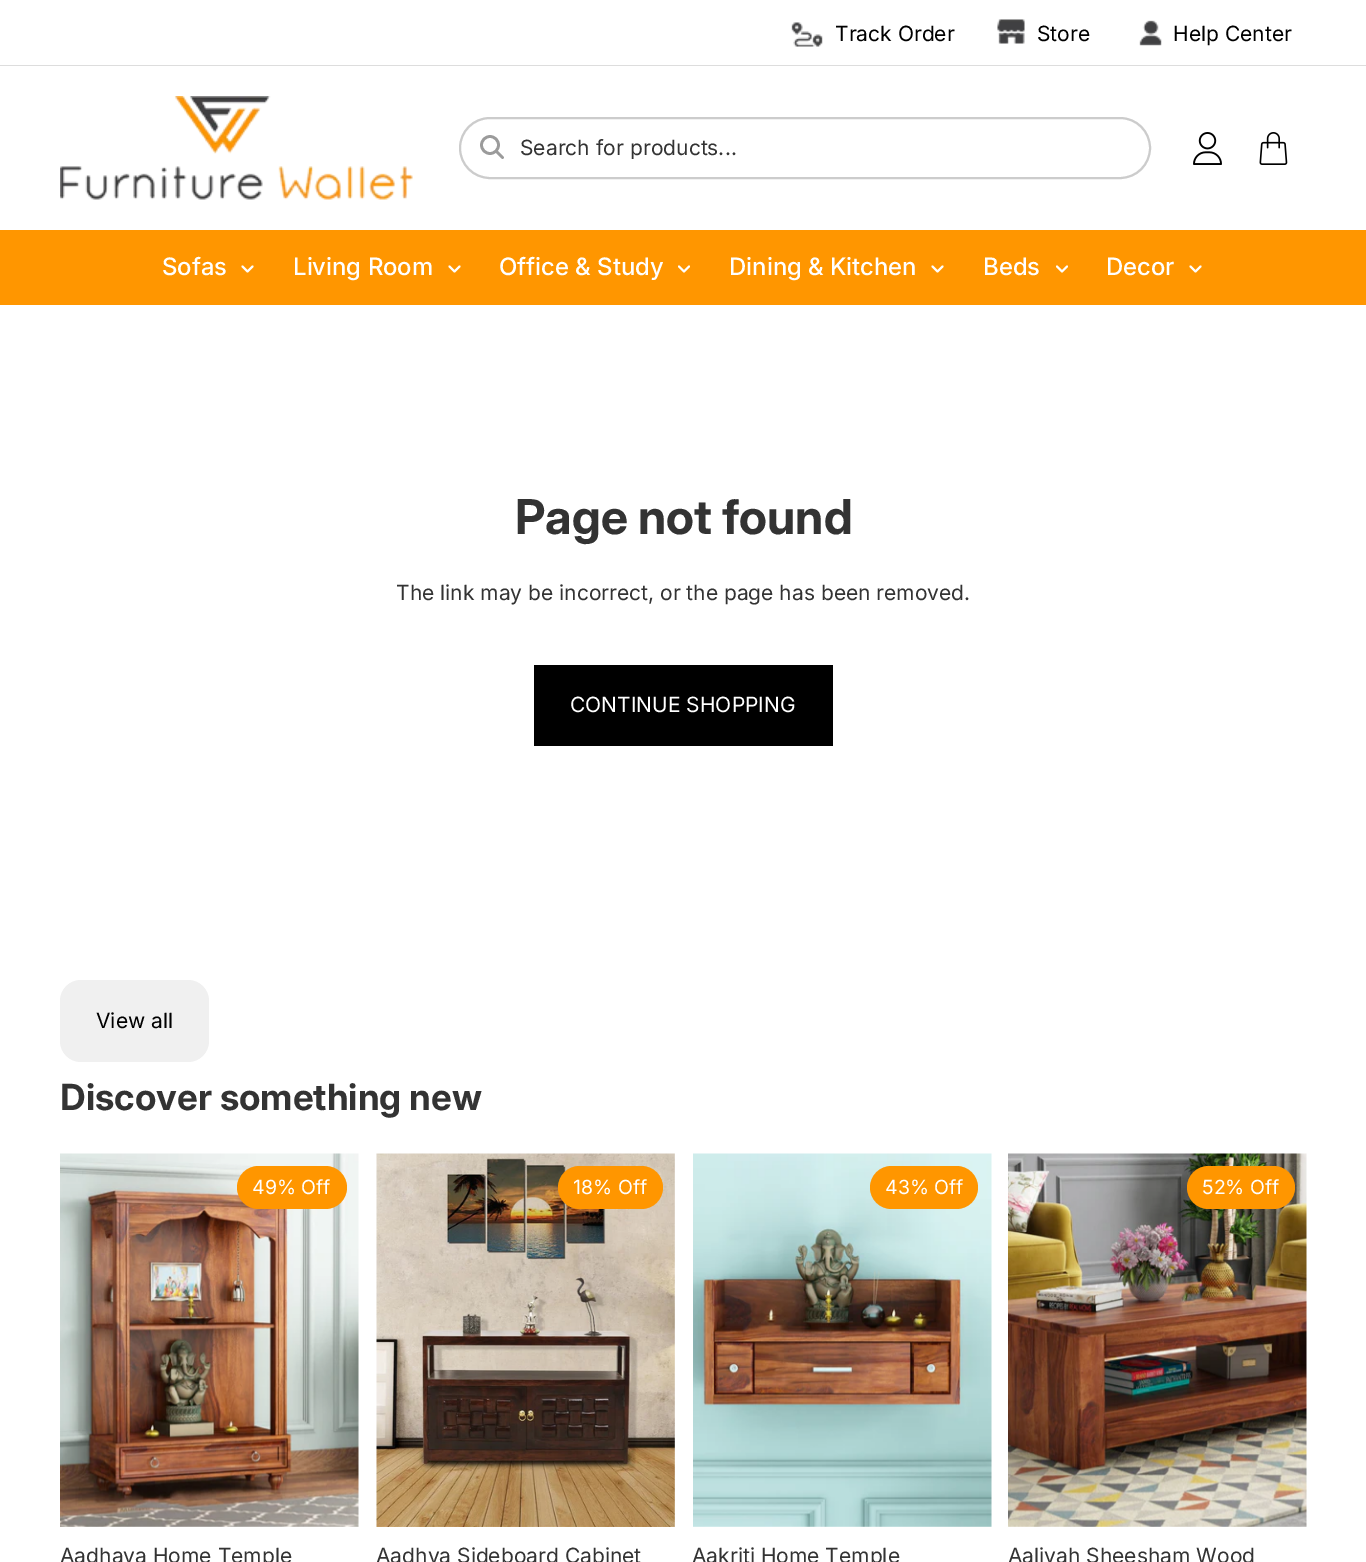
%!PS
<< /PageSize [1366 1562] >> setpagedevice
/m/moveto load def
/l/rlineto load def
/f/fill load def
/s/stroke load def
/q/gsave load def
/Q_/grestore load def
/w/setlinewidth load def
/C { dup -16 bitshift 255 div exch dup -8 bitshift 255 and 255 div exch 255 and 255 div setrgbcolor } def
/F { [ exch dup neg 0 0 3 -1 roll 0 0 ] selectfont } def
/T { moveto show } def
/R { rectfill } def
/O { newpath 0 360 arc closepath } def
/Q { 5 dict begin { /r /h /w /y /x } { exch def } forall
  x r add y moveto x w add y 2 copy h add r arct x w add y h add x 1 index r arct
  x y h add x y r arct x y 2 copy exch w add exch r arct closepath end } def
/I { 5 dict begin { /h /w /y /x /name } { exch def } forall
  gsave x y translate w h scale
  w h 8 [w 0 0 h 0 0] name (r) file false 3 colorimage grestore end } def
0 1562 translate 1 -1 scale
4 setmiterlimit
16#FFFFFF C
0 0 1366 1562 R
16#DDDDDD C
0 65 1366 1 R
(1.rgb) 791 22 32 25 I
/Inter-Regular 21 F
16#000000 C
(Track Order) 835 41 T
(2.rgb) 997 19 28 25 I
(Store) 1037 41 T
(3.rgb) 1139 20 23 26 I
(Help Center) 1173 41 T
(4.rgb) 60 96 353 104 I
16#CCCCCC C
2 w
460 118 690 60 30 Q s
16#9B9B9B C
2.7 w
490 145 8.5 O s
1 setlinecap
1 setlinejoin
496.5 151.5 m 6 6 l s
q
521 134 604 25 rectclip
16#333333 C
(Search for products...) 520 155 T
Q_
(5.rgb) 1193 132 29 33 I
(6.rgb) 1259 132 29 33 I
16#FF9600 C
0 230 1366 75 R
/Inter-Medium 24 F
16#FFFFFF C
(Sofas) 162 275 T
1.9 w
252.5 266.5 m -5 5 l -5 -5 l s
(Living Room) 293 275 T
459.5 266.5 m -5 5 l -5 -5 l s
(Office & Study) 499 275 T
689 266.5 m -5 5 l -5 -5 l s
(Dining & Kitchen) 729 275 T
942.5 266.5 m -5 5 l -5 -5 l s
(Beds) 983 275 T
1067 266.5 m -5 5 l -5 -5 l s
(Decor) 1106 275 T
1200.5 266.5 m -5 5 l -5 -5 l s
/Inter-Bold 48 F
16#333333 C
(Page not found) 515 534 T
/Inter-Regular 21 F
(The link may be incorrect, or the page has been removed.) 396 600 T
16#000000 C
534 665 299 81 R
16#FFFFFF C
(CONTINUE SHOPPING) 570 712 T
16#F0F0F0 C
60 980 149 82 21 Q f
16#000000 C
(View all) 96 1028 T
/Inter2-Bold 36 F
16#333333 C
(Discover something new) 60 1110 T
(7.rgb) 60 1153 299 374 I
16#FF9600 C
237 1166 110 43 21.5 Q f
/Inter-Regular 19.5 F
16#FFFFFF C
(49% Off) 252 1194 T
/Inter-Regular 21 F
16#333333 C
(Aadhaya Home Temple) 60 1563 T
(8.rgb) 376 1153 299 374 I
16#FF9600 C
558 1166 105 43 21.5 Q f
/Inter-Regular 19.5 F
16#FFFFFF C
(18% Off) 573 1194 T
/Inter-Regular 21 F
16#333333 C
(Aadhya Sideboard Cabinet) 376 1563 T
(9.rgb) 693 1153 299 374 I
16#FF9600 C
870 1166 108 43 21.5 Q f
/Inter-Regular 19.5 F
16#FFFFFF C
(43% Off) 885 1194 T
/Inter-Regular 21 F
16#333333 C
(Aakriti Home Temple) 692 1563 T
(10.rgb) 1008 1153 299 374 I
16#FF9600 C
1187 1166 108 43 21.5 Q f
/Inter-Regular 19.5 F
16#FFFFFF C
(52% Off) 1202 1194 T
/Inter-Regular 21 F
16#333333 C
(Aaliyah Sheesham Wood) 1008 1563 T
showpage
